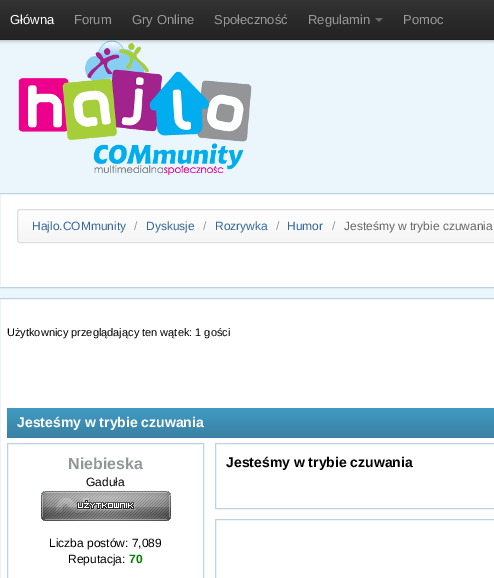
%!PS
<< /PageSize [494 578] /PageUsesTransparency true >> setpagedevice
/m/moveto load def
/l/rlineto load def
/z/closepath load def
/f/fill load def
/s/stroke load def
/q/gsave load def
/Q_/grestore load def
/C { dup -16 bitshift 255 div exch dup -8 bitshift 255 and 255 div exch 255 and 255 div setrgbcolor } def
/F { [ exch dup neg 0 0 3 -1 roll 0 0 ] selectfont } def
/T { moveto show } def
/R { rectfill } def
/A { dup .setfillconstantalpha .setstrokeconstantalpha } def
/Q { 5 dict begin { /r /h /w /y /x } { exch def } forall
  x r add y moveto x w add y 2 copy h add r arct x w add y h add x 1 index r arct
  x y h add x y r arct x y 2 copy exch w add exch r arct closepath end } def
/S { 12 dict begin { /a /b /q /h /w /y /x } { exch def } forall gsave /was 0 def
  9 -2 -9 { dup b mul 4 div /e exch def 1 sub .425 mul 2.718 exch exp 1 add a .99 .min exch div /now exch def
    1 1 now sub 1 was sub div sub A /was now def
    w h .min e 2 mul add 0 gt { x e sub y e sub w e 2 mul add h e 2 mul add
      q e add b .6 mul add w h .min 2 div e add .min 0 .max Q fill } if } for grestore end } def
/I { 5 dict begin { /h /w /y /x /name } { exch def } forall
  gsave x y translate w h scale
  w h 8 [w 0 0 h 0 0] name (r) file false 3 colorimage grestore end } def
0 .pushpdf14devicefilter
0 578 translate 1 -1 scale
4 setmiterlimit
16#EBF5FC C
0 0 494 578 R
(1.rgb) 18 40 234 135 I
16#000000 C
0 1 494 40 0 1.5 .25 S
q 0 0 m 494 0 l 0 39 l -494 0 l z clip newpath
<< /ShadingType 2 /ColorSpace /DeviceRGB /Coords [247 0 247 40] /Extend [true true] /Function << /FunctionType 2 /Domain [0 1] /C0 [.2 .2 .2] /C1 [.133 .133 .133] /N 1 >> >> shfill Q_
16#1F1F1F C
0 39 494 1 R
/LiberationSans-Regular 13 F
16#FFFFFF C
(Główna) 10 24 T
16#999999 C
(Forum) 74 24 T
(Gry Online) 132 24 T
(Społeczność) 214 24 T
(Regulamin) 308 24 T
16#6A6A6A C
375 18 m 8 0 l -4 4 l z f
16#999999 C
(Pomoc) 403 24 T
16#FFFFFF C
-.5 193.5 m 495 0 l 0 94 l -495 0 l z q f Q_
16#BCD2E6 C
s
q
17 209 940 34 3 Q clip newpath
q 17 210 m 477 0 l 0 32 l -477 0 l z clip newpath
<< /ShadingType 2 /ColorSpace /DeviceRGB /Coords [487 210 487 242] /Extend [true true] /Function << /FunctionType 2 /Domain [0 1] /C0 [1 1 1] /C1 [.961 .961 .961] /N 1 >> >> shfill Q_
Q_
16#DDDDDD C
17.5 209.5 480 33 2.5 Q s
/LiberationSans-Regular 12 F
16#336699 C
(Hajlo.COMmunity) 32 230 T
16#999999 C
(/) 134 230 T
16#336699 C
(Dyskusje) 146 230 T
16#999999 C
(/) 203 230 T
16#336699 C
(Rozrywka) 215 230 T
16#999999 C
(/) 276 230 T
16#336699 C
(Humor) 287 230 T
16#999999 C
(/) 332 230 T
16#666666 C
(Jesteśmy w trybie czuwania) 344 230 T
16#FFFFFF C
-.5 298.5 m 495 0 l 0 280 l -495 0 l z q f Q_
16#BCD2E6 C
s
/LiberationSans-Regular 11 F
16#000000 C
(Użytkownicy przeglądający ten wątek: 1 gości) 7 336 T
q 7 408 m 487 0 l 0 30 l -487 0 l z clip newpath
<< /ShadingType 2 /ColorSpace /DeviceRGB /Coords [487 408 487 438] /Extend [true true] /Function << /FunctionType 2 /Domain [0 1] /C0 [.259 .604 .761] /C1 [.224 .506 .639] /N 1 >> >> shfill Q_
/LiberationSans-Bold 14 F
16#FFFFFF C
(Jesteśmy w trybie czuwania) 17 427 T
16#BCD2E6 C
7.5 443.5 196 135 rectstroke
/LiberationSans-Bold 16 F
16#939598 C
(Niebieska) 68 469 T
/LiberationSans-Regular 12 F
16#000000 C
(Gaduła) 86 486 T
(2.rgb) 41 491 130 30 I
(Liczba postów: 7,089) 49 547 T
(Reputacja:) 68 563 T
/LiberationSans-Bold 12 F
16#008000 C
(70) 129 563 T
16#BCD2E6 C
215.5 443.5 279 65 rectstroke
/LiberationSans-Bold 14 F
16#000000 C
(Jesteśmy w trybie czuwania) 226 467 T
16#BCD2E6 C
215.5 519.5 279 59 rectstroke
.poppdf14devicefilter showpage
